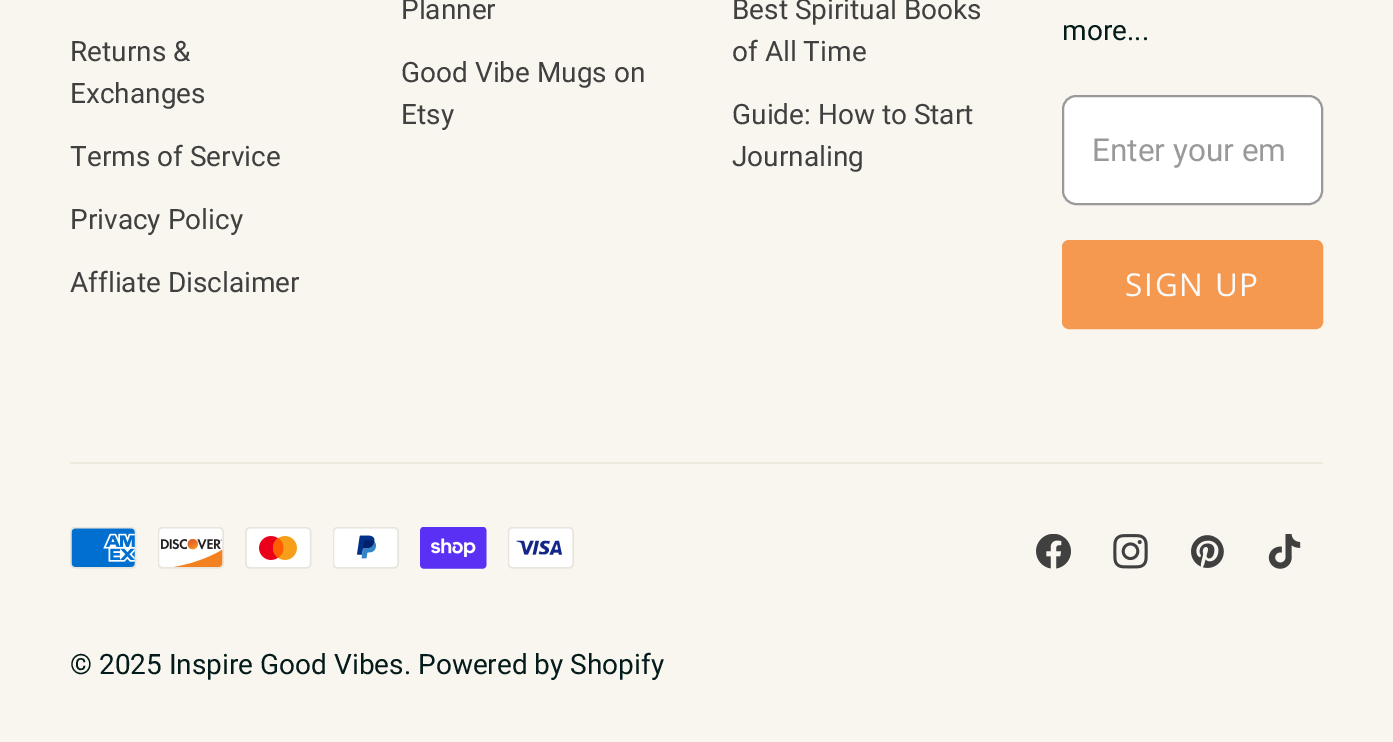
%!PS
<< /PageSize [1393 742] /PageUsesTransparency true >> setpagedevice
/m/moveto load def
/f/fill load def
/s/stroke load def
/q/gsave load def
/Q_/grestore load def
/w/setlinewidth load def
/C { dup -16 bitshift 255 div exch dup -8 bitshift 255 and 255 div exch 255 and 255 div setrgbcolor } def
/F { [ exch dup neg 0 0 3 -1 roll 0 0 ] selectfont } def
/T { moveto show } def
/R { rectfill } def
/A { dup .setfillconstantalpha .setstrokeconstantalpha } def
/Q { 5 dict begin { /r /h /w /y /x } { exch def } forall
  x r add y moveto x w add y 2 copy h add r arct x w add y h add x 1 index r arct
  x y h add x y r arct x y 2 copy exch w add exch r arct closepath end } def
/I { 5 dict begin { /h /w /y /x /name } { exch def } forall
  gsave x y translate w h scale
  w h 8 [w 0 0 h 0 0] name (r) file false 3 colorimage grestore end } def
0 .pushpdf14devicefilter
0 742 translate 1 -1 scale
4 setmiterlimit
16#F9F6EF C
0 0 1393 742 R
/Roboto-Regular 28 F
16#404040 C
(Returns &) 70 61 T
(Exchanges) 70 103 T
(Terms of Service) 70 166 T
(Privacy Policy) 70 229 T
(Affliate Disclaimer) 70 292 T
(Planner) 401 19 T
(Good Vibe Mugs on) 401 82 T
(Etsy) 401 124 T
(Best Spiritual Books) 732 19 T
(of All Time) 732 61 T
(Guide: How to Start) 732 124 T
(Journaling) 732 166 T
16#041B1B C
(more...) 1062 40 T
16#FFFFFF C
1062 95 261 110 14 Q f
0.4 A
16#000000 C
2 w
1063 96 259 108 13 Q s
/Roboto-Regular 31.5 F
1 A
16#999999 C
(Enter your em) 1092 161 T
16#F59950 C
1063 241 259 87 6 Q q f Q_
s
/OpenSans-Regular 31.5 F
16#FAFAFA C
1125 296 m 1.75 0 (SIGN UP) ashow
16#EDE9DD C
70 462 1253 2 R
(1.rgb) 1036 534 35 35 I
(2.rgb) 1113 534 35 35 I
(3.rgb) 1191 535 33 33 I
(4.rgb) 1268 534 33 35 I
(5.rgb) 70 527 67 42 I
(6.rgb) 158 527 66 42 I
(7.rgb) 245 527 67 42 I
(8.rgb) 333 527 66 42 I
(9.rgb) 420 527 67 42 I
(10.rgb) 508 527 66 42 I
/Roboto-Regular 28 F
16#041B1B C
(© 2025 Inspire Good Vibes. Powered by Shopify) 70 674 T
.poppdf14devicefilter showpage
